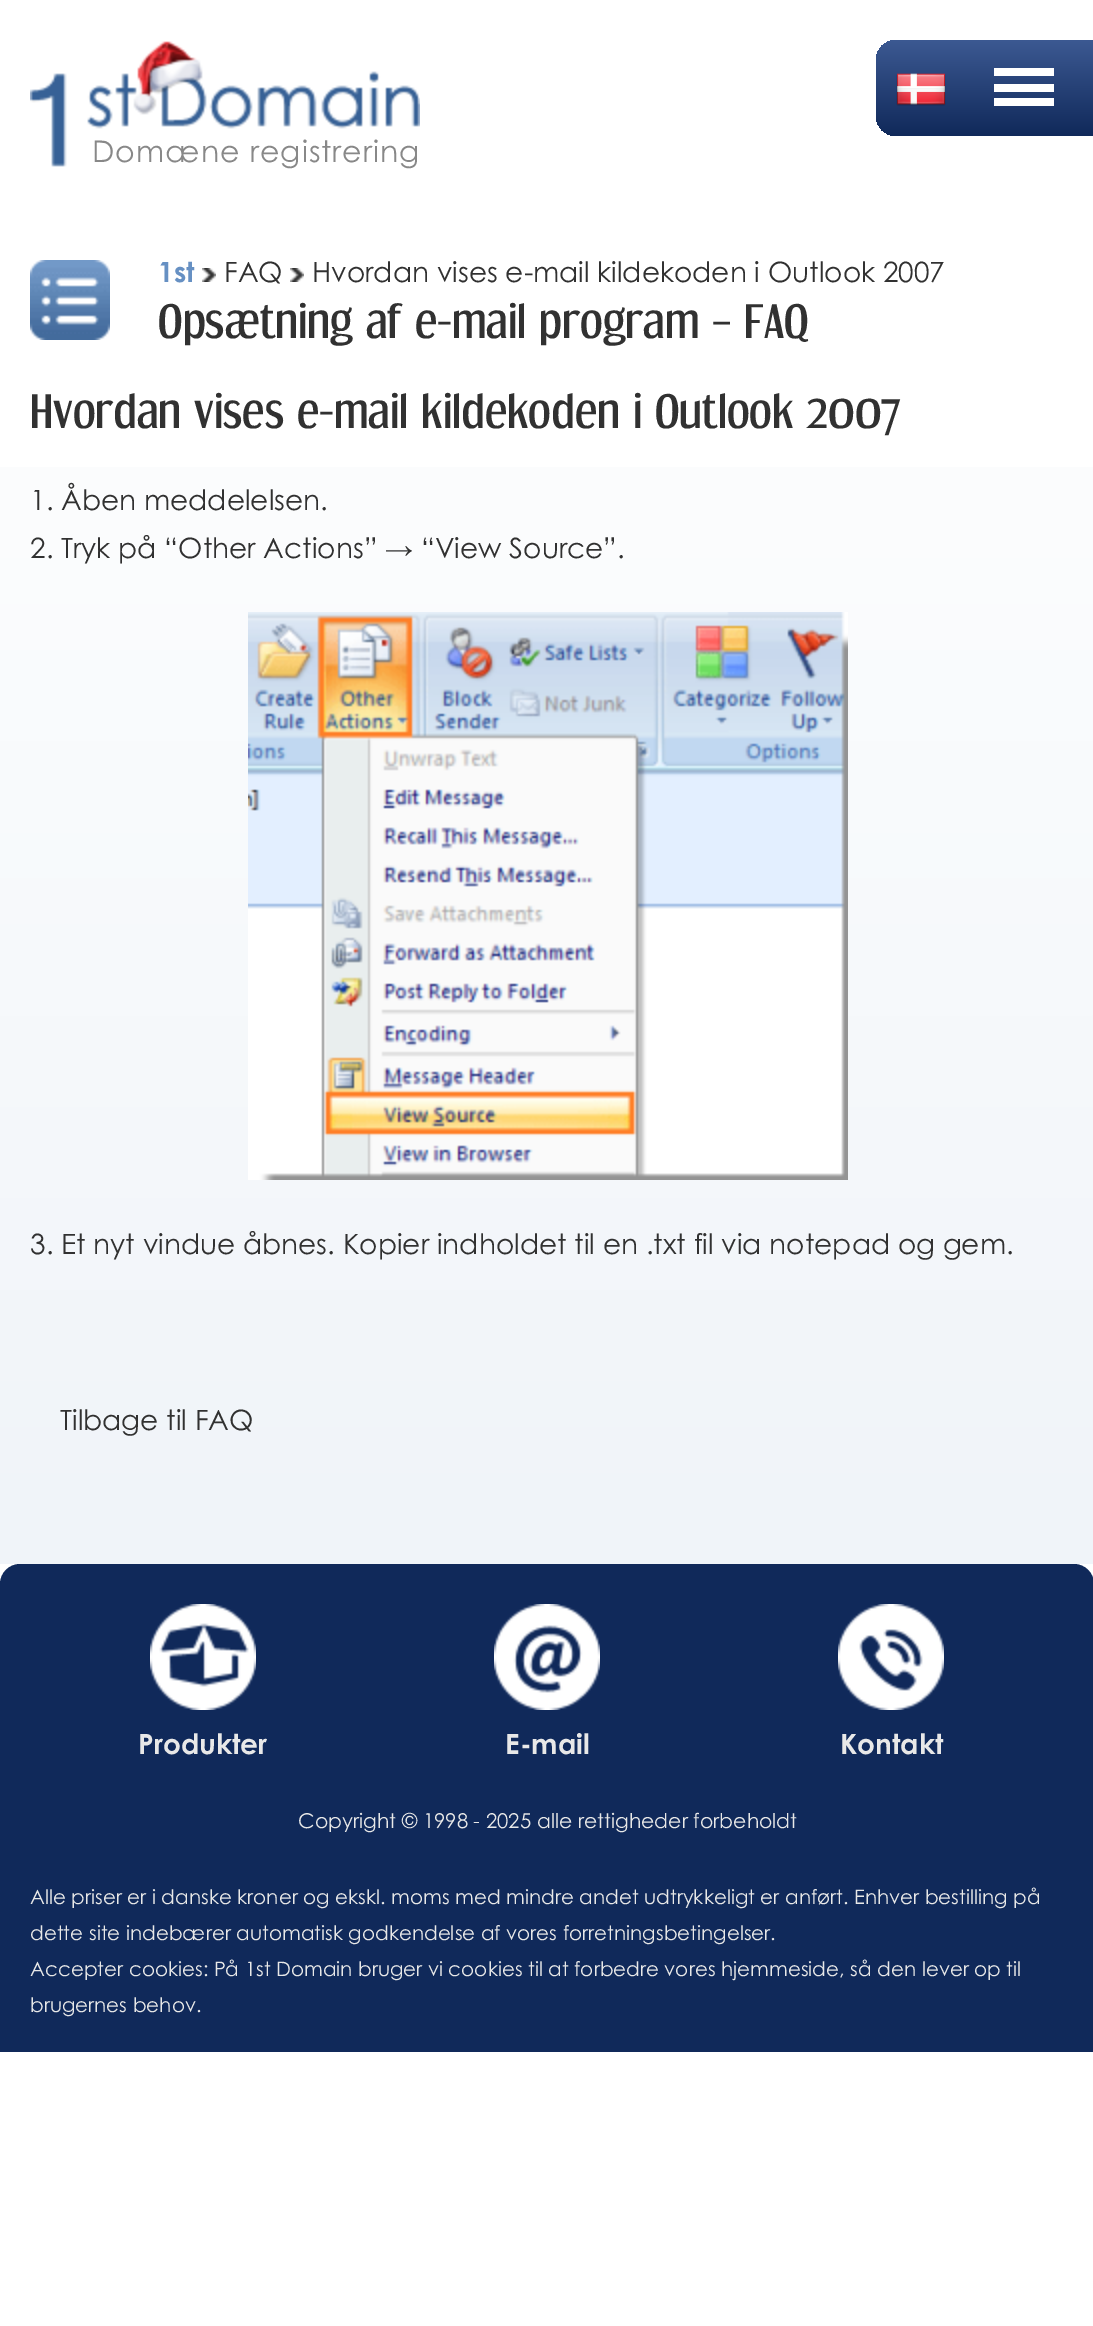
%!PS
<< /PageSize [1093 2326] >> setpagedevice
/m/moveto load def
/l/rlineto load def
/c/rcurveto load def
/z/closepath load def
/f/fill load def
/q/gsave load def
/Q_/grestore load def
/C { dup -16 bitshift 255 div exch dup -8 bitshift 255 and 255 div exch 255 and 255 div setrgbcolor } def
/F { [ exch dup neg 0 0 3 -1 roll 0 0 ] selectfont } def
/T { moveto show } def
/R { rectfill } def
/I { 5 dict begin { /h /w /y /x /name } { exch def } forall
  gsave x y translate w h scale
  w h 8 [w 0 0 h 0 0] name (r) file false 3 colorimage grestore end } def
0 2326 translate 1 -1 scale
4 setmiterlimit
16#FFFFFF C
0 0 1093 2326 R
q 896 40 m 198 0 l 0 96 l -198 0 l -11 0 -20 -9 -20 -20 c 0 -56 l 0 -11 9 -20 20 -20 c z clip newpath
<< /ShadingType 2 /ColorSpace /DeviceRGB /Coords [985 40 985 136] /Extend [true true] /Function << /FunctionType 2 /Domain [0 1] /C0 [.235 .349 .573] /C1 [.063 .161 .353] /N 1 >> >> shfill Q_
(1.rgb) 896 73 50 33 I
994 98 60 8 R
994 84 60 8 R
994 68 60 8 R
(2.rgb) 30 41 390 126 I
/CenturyGothic-Regular 30 F
16#888888 C
92 162 m 1 0 (Domæne registrering) ashow
q 0 467 m 1093 0 l 0 1097 l -1093 0 l z clip newpath
<< /ShadingType 2 /ColorSpace /DeviceRGB /Coords [547 248 547 1564] /Extend [true true] /Function << /FunctionType 2 /Domain [0 1] /C0 [1 1 1] /C1 [.941 .957 .976] /N 1 >> >> shfill Q_
(3.rgb) 30 260 80 80 I
/CenturyGothic-Bold 28 F
16#6690C3 C
(1st) 158 282 T
(4.rgb) 202 268 14 14 I
/CenturyGothic-Regular 28 F
16#313131 C
(FAQ) 224 282 T
(4.rgb) 290 268 14 14 I
(Hvordan vises e-mail kildekoden i Outlook 2007) 312 282 T
/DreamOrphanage-Regular 44 F
(Opsætning af e-mail program – FAQ) 158 338 T
(Hvordan vises e-mail kildekoden i Outlook 2007) 30 428 T
/CenturyGothic-Regular 28 F
(1. Åben meddelelsen.) 30 510 T
(2. Tryk på “Other Actions” → “View Source”.) 30 558 T
(5.rgb) 248 612 600 568 I
(3. Et nyt vindue åbnes. Kopier indholdet til en .txt fil via notepad og gem.) 30 1254 T
(Tilbage til FAQ) 60 1430 T
16#10295A C
20 1564 m 1054 0 l 11 0 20 9 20 20 c 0 468 l -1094 0 l 0 -468 l 0 -11 9 -20 20 -20 c z f
(6.rgb) 150 1604 106 106 I
/CenturyGothic-Bold 28 F
16#E8E8E8 C
(Produkter) 138 1754 T
(7.rgb) 494 1604 106 106 I
(E-mail) 505 1754 T
(8.rgb) 838 1604 106 106 I
(Kontakt) 840 1754 T
/CenturyGothic-Regular 20.4 F
(Copyright © 1998 - 2025 alle rettigheder forbeholdt) 298 1828 T
/CenturyGothic-Regular 20 F
(Alle priser er i danske kroner og ekskl. moms med mindre andet udtrykkeligt er anført. Enhver bestilling på) 30 1904 T
(dette site indebærer automatisk godkendelse af vores forretningsbetingelser.) 30 1940 T
(Accepter cookies: På 1st Domain bruger vi cookies til at forbedre vores hjemmeside, så den lever op til) 30 1976 T
(brugernes behov.) 30 2012 T
showpage
